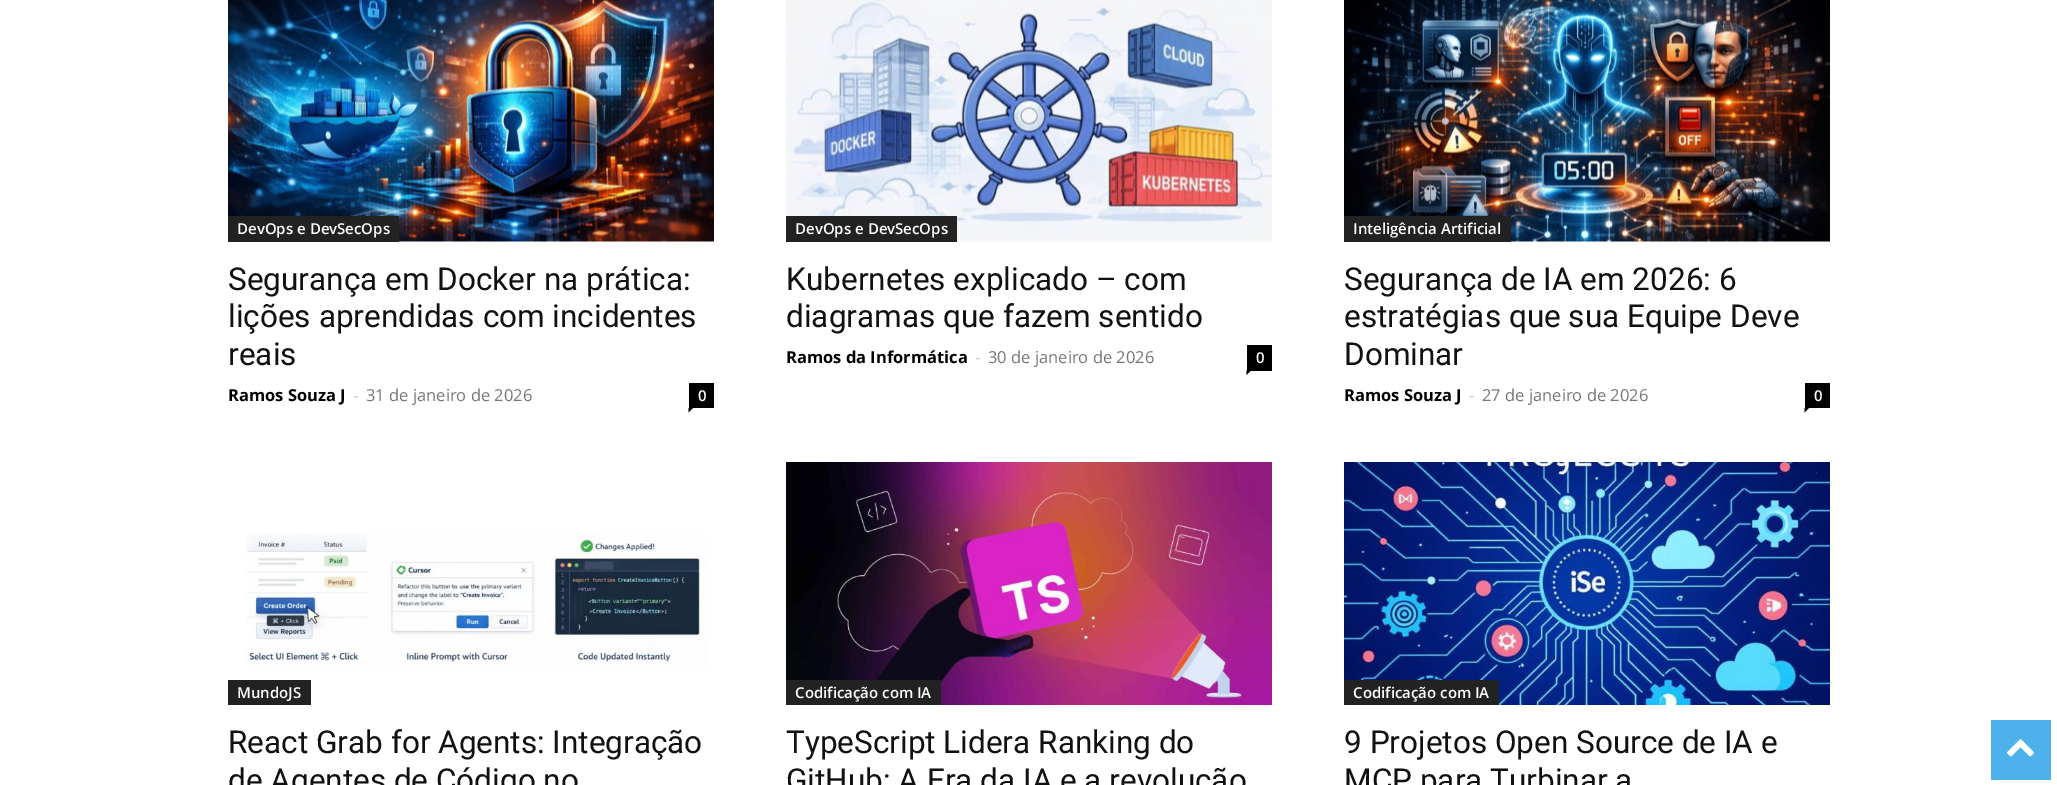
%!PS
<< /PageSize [2057 785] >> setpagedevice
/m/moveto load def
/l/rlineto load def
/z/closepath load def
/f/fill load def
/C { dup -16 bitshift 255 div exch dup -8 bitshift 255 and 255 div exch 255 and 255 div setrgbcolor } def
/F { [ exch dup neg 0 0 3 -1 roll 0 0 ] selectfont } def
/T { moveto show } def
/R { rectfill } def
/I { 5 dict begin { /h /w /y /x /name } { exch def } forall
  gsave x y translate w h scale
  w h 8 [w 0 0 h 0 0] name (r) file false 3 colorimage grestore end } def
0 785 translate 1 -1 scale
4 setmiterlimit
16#FFFFFF C
0 0 2057 785 R
(1.rgb) 228 0 486 242 I
16#222222 C
228 216 171 26 R
/OpenSans-SemiBold 15 F
16#FFFFFF C
(DevOps e DevSecOps) 237 234 T
/Roboto-Regular 31.5 F
16#111111 C
(Segurança em Docker na prática:) 228 290 T
(lições aprendidas com incidentes) 228 327 T
(reais) 228 365 T
/OpenSans-Bold 16.5 F
16#000000 C
(Ramos Souza J) 228 401 T
/OpenSans-Regular 16.5 F
16#CCCCCC C
(-) 353 401 T
16#767676 C
(31 de janeiro de 2026) 366 401 T
16#000000 C
689 383 25 25 R
/OpenSans-SemiBold 15 F
16#FFFFFF C
(0) 698 401 T
16#000000 C
688.5 408 m 4.5 0 l -4.5 4.5 l z f
(2.rgb) 786 0 486 242 I
16#222222 C
786 216 171 26 R
16#FFFFFF C
(DevOps e DevSecOps) 795 234 T
/Roboto-Regular 31.5 F
16#111111 C
(Kubernetes explicado – com) 786 290 T
(diagramas que fazem sentido) 786 327 T
/OpenSans-Bold 16.5 F
16#000000 C
(Ramos da Informática) 786 363 T
/OpenSans-Regular 16.5 F
16#CCCCCC C
(-) 975 363 T
16#767676 C
(30 de janeiro de 2026) 988 363 T
16#000000 C
1247 345 25 26 R
/OpenSans-SemiBold 15 F
16#FFFFFF C
(0) 1256 363 T
16#000000 C
1246.5 370.5 m 4.5 0 l -4.5 4.5 l z f
(3.rgb) 1344 0 486 242 I
16#222222 C
1344 216 167 26 R
16#FFFFFF C
(Inteligência Artificial) 1353 234 T
/Roboto-Regular 31.5 F
16#111111 C
(Segurança de IA em 2026: 6) 1344 290 T
(estratégias que sua Equipe Deve) 1344 327 T
(Dominar) 1344 365 T
/OpenSans-Bold 16.5 F
16#000000 C
(Ramos Souza J) 1344 401 T
/OpenSans-Regular 16.5 F
16#CCCCCC C
(-) 1469 401 T
16#767676 C
(27 de janeiro de 2026) 1482 401 T
16#000000 C
1805 383 25 25 R
/OpenSans-SemiBold 15 F
16#FFFFFF C
(0) 1814 401 T
16#000000 C
1804.5 408 m 4.5 0 l -4.5 4.5 l z f
(4.rgb) 246 533 462 134 I
16#222222 C
228 680 83 25 R
16#FFFFFF C
(MundoJS) 237 698 T
/Roboto-Regular 31.5 F
16#111111 C
(React Grab for Agents: Integração) 228 753 T
(de Agentes de Código no) 228 791 T
(5.rgb) 786 462 486 243 I
16#222222 C
786 680 155 25 R
/OpenSans-SemiBold 15 F
16#FFFFFF C
(Codificação com IA) 795 698 T
/Roboto-Regular 31.5 F
16#111111 C
(TypeScript Lidera Ranking do) 786 753 T
(GitHub: A Era da IA e a revolução) 786 791 T
(6.rgb) 1344 462 486 243 I
16#222222 C
1344 680 155 25 R
/OpenSans-SemiBold 15 F
16#FFFFFF C
(Codificação com IA) 1353 698 T
/Roboto-Regular 31.5 F
16#111111 C
(9 Projetos Open Source de IA e) 1344 753 T
(MCP para Turbinar a) 1344 791 T
16#4DB2EC C
1991 720 60 60 R
(7.rgb) 2007 739 27 18 I
showpage
